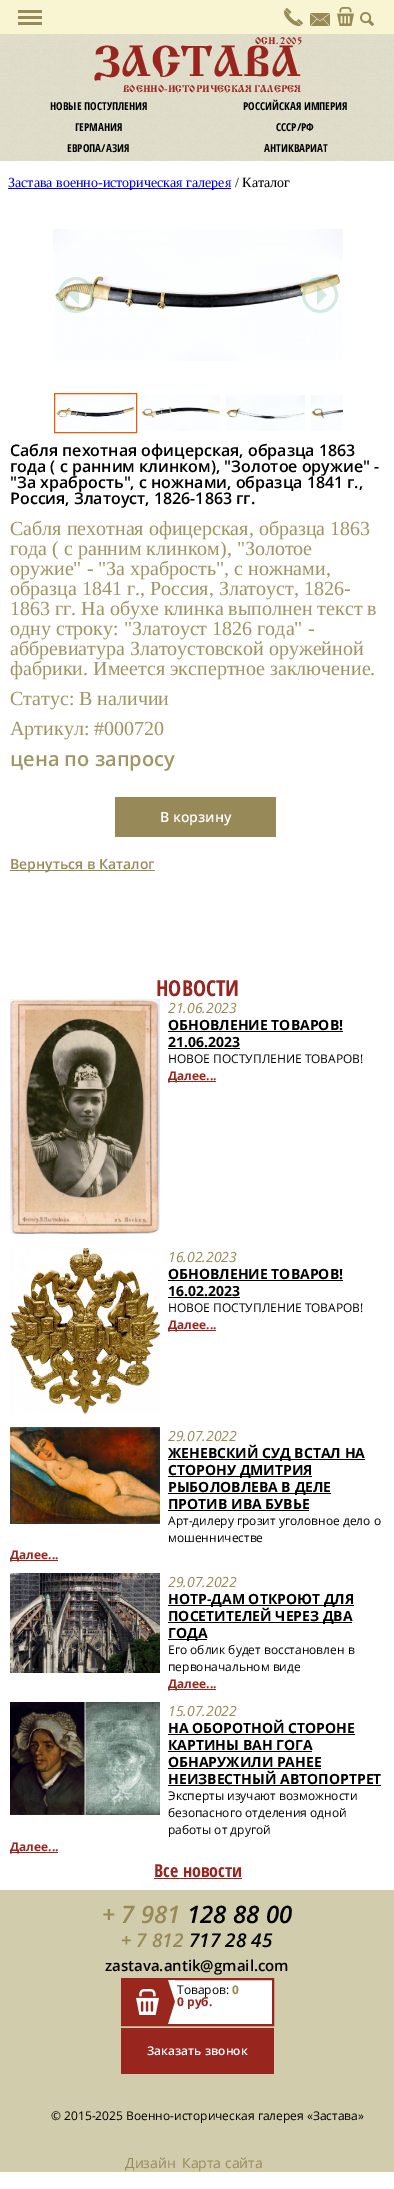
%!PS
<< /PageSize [394 2189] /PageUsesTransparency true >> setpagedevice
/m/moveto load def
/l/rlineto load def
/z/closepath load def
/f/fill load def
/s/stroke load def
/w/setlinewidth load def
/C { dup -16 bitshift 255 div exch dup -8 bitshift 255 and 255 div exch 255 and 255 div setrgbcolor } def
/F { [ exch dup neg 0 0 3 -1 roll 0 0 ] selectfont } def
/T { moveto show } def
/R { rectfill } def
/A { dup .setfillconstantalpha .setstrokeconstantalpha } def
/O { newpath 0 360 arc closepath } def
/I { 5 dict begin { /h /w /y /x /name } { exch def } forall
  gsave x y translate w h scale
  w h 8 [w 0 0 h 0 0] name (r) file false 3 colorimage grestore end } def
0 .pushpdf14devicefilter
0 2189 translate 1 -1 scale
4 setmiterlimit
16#FFFFFF C
0 0 394 2189 R
16#F9F5D2 C
0 0 394 34 R
16#968A58 C
18 10 24 15 R
16#F9F5D2 C
18 13 24 3 R
18 19 24 3 R
(1.rgb) 284 8 19 18 I
(2.rgb) 310 13 20 13 I
(3.rgb) 337 7 17 19 I
(4.rgb) 360 12 14 14 I
(5.rgb) 0 34 394 127 I
/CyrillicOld-Bold 10.3 F
16#99261E C
(ОСН. 2005) 255 44 T
/CyrillicOld-Bold 45 F
(ЗАСТАВА) 94 76 T
/CyrillicOld-Bold 10.3 F
(ВОЕННО-ИСТОРИЧЕСКАЯ ГАЛЕРЕЯ) 123 92 T
/OpenSansCondensed-Bold 11 F
16#000000 C
(НОВЫЕ ПОСТУПЛЕНИЯ) 50 110 T
(РОССИЙСКАЯ ИМПЕРИЯ) 243 110 T
(ГЕРМАНИЯ) 75 131 T
(СССР/РФ) 276 131 T
(ЕВРОПА/АЗИЯ) 67 152 T
(АНТИКВАРИАТ) 264 152 T
16#0000EE C
8 188 223 1 R
/LiberationSerif-Regular 14 F
(Застава военно-историческая галерея) 8 187 T
16#000000 C
(/ Каталог) 235 187 T
(6.rgb) 53 229 290 132 I
0.2 A
16#FFFFFF C
76 295 18 O f
16#349A6B C
3 w
76 295 16.5 O s
79 285 m 0 20 l -10 -10 l z f
16#FFFFFF C
320 295 18 O f
16#349A6B C
320 295 16.5 O s
317 305 m 0 -20 l 10 10 l z f
1 A
(7.rgb) 56 395 79 36 I
16#E55E04 C
1 w
54.5 393.5 82 39 rectstroke
(8.rgb) 141 395 79 36 I
(9.rgb) 226 395 79 36 I
(10.rgb) 311 395 32 36 I
/OpenSans-SemiBold 16 F
16#000000 C
(Сабля пехотная офицерская, образца 1863) 10 456 T
(года \( с ранним клинком\), "Золотое оружие" -) 10 472 T
("За храбрость", с ножнами, образца 1841 г.,) 10 488 T
(Россия, Златоуст, 1826-1863 гг.) 10 504 T
/LiberationSerif-Regular 20 F
16#A09564 C
(Сабля пехотная офицерская, образца 1863) 10 535 T
(года \( с ранним клинком\), "Золотое) 10 555 T
(оружие" - "За храбрость", с ножнами,) 10 575 T
(образца 1841 г., Россия, Златоуст, 1826-) 10 595 T
(1863 гг. На обухе клинка выполнен текст в) 10 615 T
(одну строку: "Златоуст 1826 года" -) 10 635 T
(аббревиатура Златоустовской оружейной) 10 655 T
(фабрики. Имеется экспертное заключение.) 10 675 T
(Статус: В наличии) 10 705 T
(Артикул: #000720) 10 735 T
/OpenSans-SemiBold 20 F
(цена по запросу) 10 766 T
16#978A58 C
115 797 161 40 R
/OpenSans-SemiBold 14 F
16#FFFFFF C
(В корзину) 160 822 T
16#978A58 C
10 870 145 1 R
(Вернуться в Каталог) 10 869 T
/OpenSansCondensed-Bold 22 F
16#99261E C
(НОВОСТИ) 156 996 T
(11.rgb) 10 999 150 235 I
/OpenSans-Italic 14 F
16#978A58 C
(21.06.2023) 168 1013 T
/OpenSans-Bold 14 F
16#000000 C
(ОБНОВЛЕНИЕ ТОВАРОВ!) 168 1030 T
168 1031 175 1 R
(21.06.2023) 168 1047 T
168 1048 72 1 R
/OpenSans-Regular 12 F
(НОВОЕ ПОСТУПЛЕНИЕ ТОВАРОВ!) 168 1063 T
16#99261E C
168 1081 48 1 R
/OpenSans-Bold 12 F
(Далее...) 168 1080 T
(12.rgb) 10 1248 150 166 I
/OpenSans-Italic 14 F
16#978A58 C
(16.02.2023) 168 1262 T
/OpenSans-Bold 14 F
16#000000 C
(ОБНОВЛЕНИЕ ТОВАРОВ!) 168 1279 T
168 1280 175 1 R
(16.02.2023) 168 1296 T
168 1297 72 1 R
/OpenSans-Regular 12 F
(НОВОЕ ПОСТУПЛЕНИЕ ТОВАРОВ!) 168 1312 T
16#99261E C
168 1330 48 1 R
/OpenSans-Bold 12 F
(Далее...) 168 1329 T
(13.rgb) 10 1427 150 97 I
/OpenSans-Italic 14 F
16#978A58 C
(29.07.2022) 168 1441 T
16#000000 C
168 1459 197 1 R
/OpenSans-Bold 14 F
(ЖЕНЕВСКИЙ СУД ВСТАЛ НА) 168 1458 T
168 1476 144 1 R
(СТОРОНУ ДМИТРИЯ) 168 1475 T
168 1493 163 1 R
(РЫБОЛОВЛЕВА В ДЕЛЕ) 168 1492 T
(ПРОТИВ ИВА БУВЬЕ) 168 1509 T
168 1510 141 1 R
/OpenSans-Regular 12 F
(Арт-дилеру грозит уголовное дело о) 168 1525 T
(мошенничестве) 168 1542 T
16#99261E C
10 1560 48 1 R
/OpenSans-Bold 12 F
(Далее...) 10 1559 T
(14.rgb) 10 1573 150 100 I
/OpenSans-Italic 14 F
16#978A58 C
(29.07.2022) 168 1587 T
16#000000 C
168 1605 186 1 R
/OpenSans-Bold 14 F
(НОТР-ДАМ ОТКРОЮТ ДЛЯ) 168 1604 T
168 1622 184 1 R
(ПОСЕТИТЕЛЕЙ ЧЕРЕЗ ДВА) 168 1621 T
168 1639 39 1 R
(ГОДА) 168 1638 T
/OpenSans-Regular 12 F
(Его облик будет восстановлен в) 168 1654 T
(первоначальном виде) 168 1671 T
16#99261E C
168 1689 48 1 R
/OpenSans-Bold 12 F
(Далее...) 168 1688 T
(15.rgb) 10 1702 150 113 I
/OpenSans-Italic 14 F
16#978A58 C
(15.07.2022) 168 1716 T
/OpenSans-Bold 14 F
16#000000 C
(НА ОБОРОТНОЙ СТОРОНЕ) 168 1733 T
168 1734 187 1 R
(КАРТИНЫ ВАН ГОГА) 168 1750 T
168 1751 144 1 R
(ОБНАРУЖИЛИ РАНЕЕ) 168 1767 T
168 1768 153 1 R
(НЕИЗВЕСТНЫЙ АВТОПОРТРЕТ) 168 1784 T
168 1785 213 1 R
/OpenSans-Regular 12 F
(Эксперты изучают возможности) 168 1800 T
(безопасного отделения одной) 168 1817 T
(работы от другой) 168 1834 T
16#99261E C
10 1852 48 1 R
/OpenSans-Bold 12 F
(Далее...) 10 1851 T
/OpenSansCondensed-Bold 18 F
(Все новости) 154 1877 T
154 1878 88 1 R
16#D1CDAC C
0 1890 394 282 R
/OpenSans-SemiBoldItalic 24 F
16#978A58 C
(+ 7 981) 102 1923 T
16#000000 C
(128 88 00) 187 1923 T
/OpenSans-SemiBoldItalic 19 F
16#978A58 C
(+ 7 812) 121 1947 T
16#000000 C
(717 28 45) 189 1947 T
/OpenSans-SemiBold 15 F
(zastava.antik@gmail.com) 105 1971 T
/OpenSans-Regular 14 F
16#978A58 C
(Дизайн) 125 2168 T
(Карта сайта) 182 2168 T
16#FFFFFF C
168 1980 104 44 R
16#99261E C
2 w
122 1979 151 46 rectstroke
(16.rgb) 123 1980 52 44 I
/OpenSans-Regular 12 F
16#000000 C
(Товаров:) 177 1994 T
/OpenSans-Bold 12 F
16#978A58 C
(0) 232 1994 T
16#99261E C
(0 руб.) 177 2006 T
121 2028 153 46 R
/OpenSans-SemiBold 12 F
16#FFFFFF C
(Заказать звонок) 147 2055 T
/OpenSans-Regular 12 F
16#000000 C
(© 2015-2025 Военно-историческая галерея «Застава») 51 2120 T
.poppdf14devicefilter showpage
